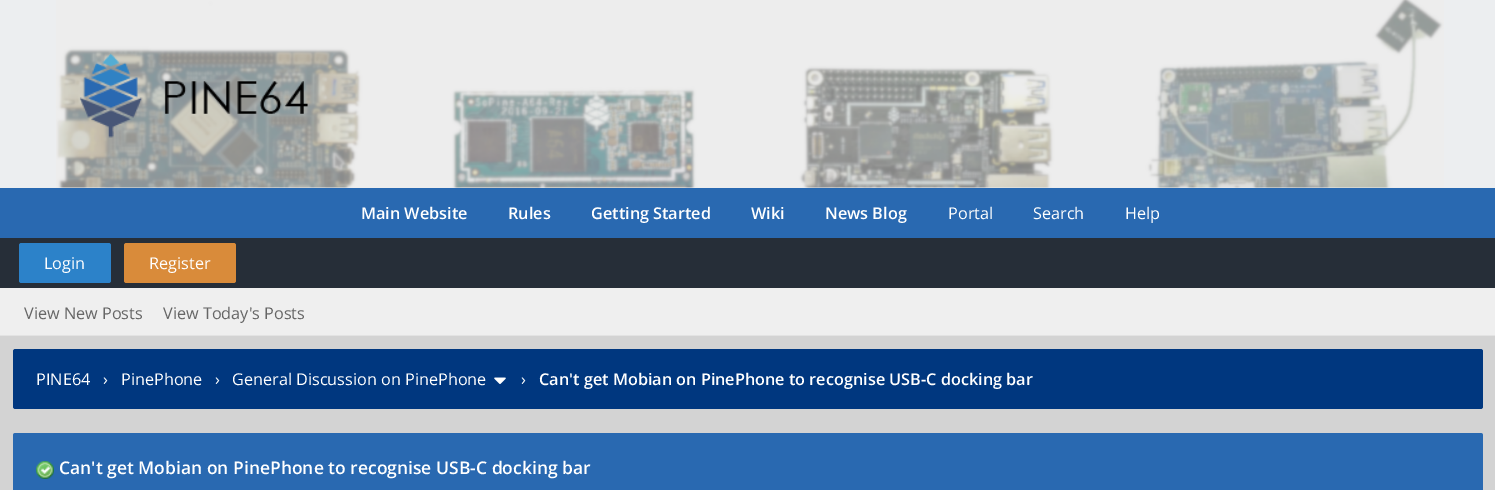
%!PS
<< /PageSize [1495 490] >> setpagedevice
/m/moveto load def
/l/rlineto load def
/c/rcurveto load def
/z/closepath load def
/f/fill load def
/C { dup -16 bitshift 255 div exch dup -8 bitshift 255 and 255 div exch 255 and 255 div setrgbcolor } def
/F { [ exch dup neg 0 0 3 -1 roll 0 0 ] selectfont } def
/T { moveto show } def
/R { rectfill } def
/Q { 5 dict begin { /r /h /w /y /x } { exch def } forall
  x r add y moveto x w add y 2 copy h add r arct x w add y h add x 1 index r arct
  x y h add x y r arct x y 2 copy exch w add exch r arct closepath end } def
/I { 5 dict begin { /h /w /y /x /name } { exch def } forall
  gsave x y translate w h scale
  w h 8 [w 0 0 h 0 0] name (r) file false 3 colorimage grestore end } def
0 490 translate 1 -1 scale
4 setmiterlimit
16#ECEEF0 C
0 0 1495 490 R
(1.rgb) 56 0 1388 188 I
(2.rgb) 79 53 229 85 I
16#2969B1 C
0 188 1495 50 R
/OpenSans-SemiBold 16.25 F
16#FFFFFF C
(Main Website) 361 219 T
(Rules) 508 219 T
(Getting Started) 591 219 T
(Wiki) 751 219 T
(News Blog) 825 219 T
/OpenSans-Regular 16.25 F
(Portal) 948 219 T
(Search) 1033 219 T
(Help) 1125 219 T
16#262E38 C
0 238 1495 50 R
16#2C82C9 C
19 243 92 40 2.5 Q f
16#FFFFFF C
(Login) 44 269 T
16#D98B3A C
124 243 112 40 2.5 Q f
16#FFFFFF C
(Register) 149 269 T
16#EFEFEF C
0 288 1495 47 R
16#E3E3E3 C
0 335 1495 1 R
16#666666 C
(View New Posts) 24 319 T
(View Today's Posts) 163 319 T
16#D3D3D3 C
0 336 1495 154 R
16#00377F C
13 349 1470 60 2.5 Q f
16#FFFFFF C
(PINE64) 36 385 T
(›) 103 385 T
(PinePhone) 121 385 T
(›) 215 385 T
(General Discussion on PinePhone) 232 385 T
(3.rgb) 494 377 12 7 I
(›) 521 385 T
/OpenSans-SemiBold 16.25 F
(Can't get Mobian on PinePhone to recognise USB-C docking bar) 539 385 T
16#2969B1 C
15.5 433 m 1465 0 l 1.5 0 2.5 1 2.5 2.5 c 0 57.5 l -1470 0 l 0 -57.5 l 0 -1.5 1 -2.5 2.5 -2.5 c z f
(4.rgb) 36 461 18 18 I
/OpenSans-SemiBold 17.5 F
16#FFFFFF C
(Can't get Mobian on PinePhone to recognise USB-C docking bar) 59 474 T
showpage
